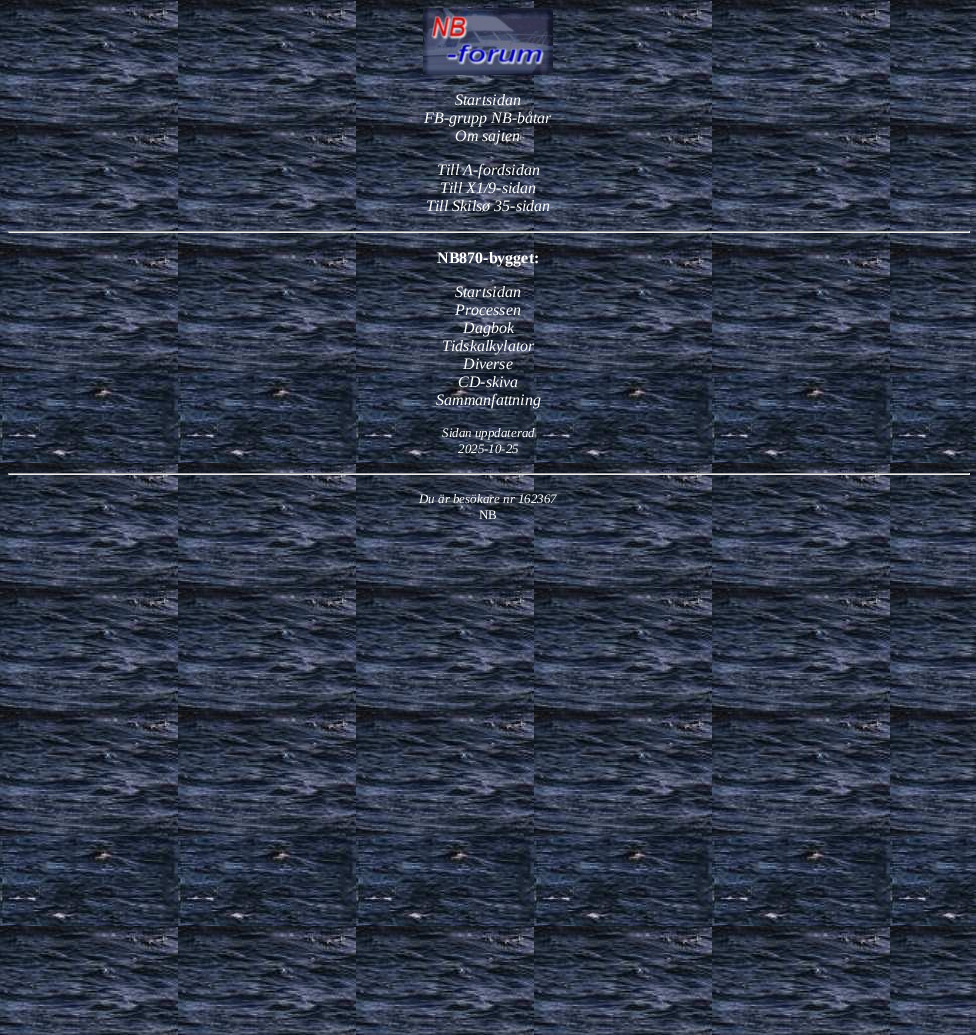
%!PS
<< /PageSize [976 1035] >> setpagedevice
/C { dup -16 bitshift 255 div exch dup -8 bitshift 255 and 255 div exch 255 and 255 div setrgbcolor } def
/F { [ exch dup neg 0 0 3 -1 roll 0 0 ] selectfont } def
/T { moveto show } def
/R { rectfill } def
/I { 5 dict begin { /h /w /y /x /name } { exch def } forall
  gsave x y translate w h scale
  w h 8 [w 0 0 h 0 0] name (r) file false 3 colorimage grestore end } def
0 1035 translate 1 -1 scale
4 setmiterlimit
16#FFFFFF C
0 0 976 1035 R
(1.rgb) 0 0 976 1035 I
(2.rgb) 423 8 130 67 I
/LiberationSerif-Italic 16 F
(Startsidan) 455 105 T
(FB-grupp NB-båtar) 424 123 T
(Om sajten) 455 141 T
(Till A-fordsidan) 437 175 T
(Till X1/9-sidan) 440 193 T
(Till Skilsø 35-sidan) 426 211 T
16#9F9F9F C
8 231 962 1 R
16#EEEEEE C
969 231 1 2 R
8 232 962 1 R
16#9F9F9F C
8 231 1 2 R
/LiberationSerif-Bold 16 F
16#FFFFFF C
(NB870-bygget:) 437 263 T
/LiberationSerif-Italic 16 F
(Startsidan) 455 297 T
(Processen) 455 315 T
(Dagbok) 463 333 T
(Tidskalkylator) 442 351 T
(Diverse) 463 369 T
(CD-skiva) 458 387 T
(Sammanfattning) 436 405 T
/LiberationSerif-Italic 13 F
(Sidan uppdaterad) 442 437 T
(2025-10-25) 458 453 T
16#9F9F9F C
8 473 962 1 R
16#EEEEEE C
969 473 1 2 R
8 474 962 1 R
16#9F9F9F C
8 473 1 2 R
16#FFFFFF C
(Du är besökare nr 162367) 419 503 T
/LiberationSerif-Regular 13 F
(NB) 479 519 T
showpage
